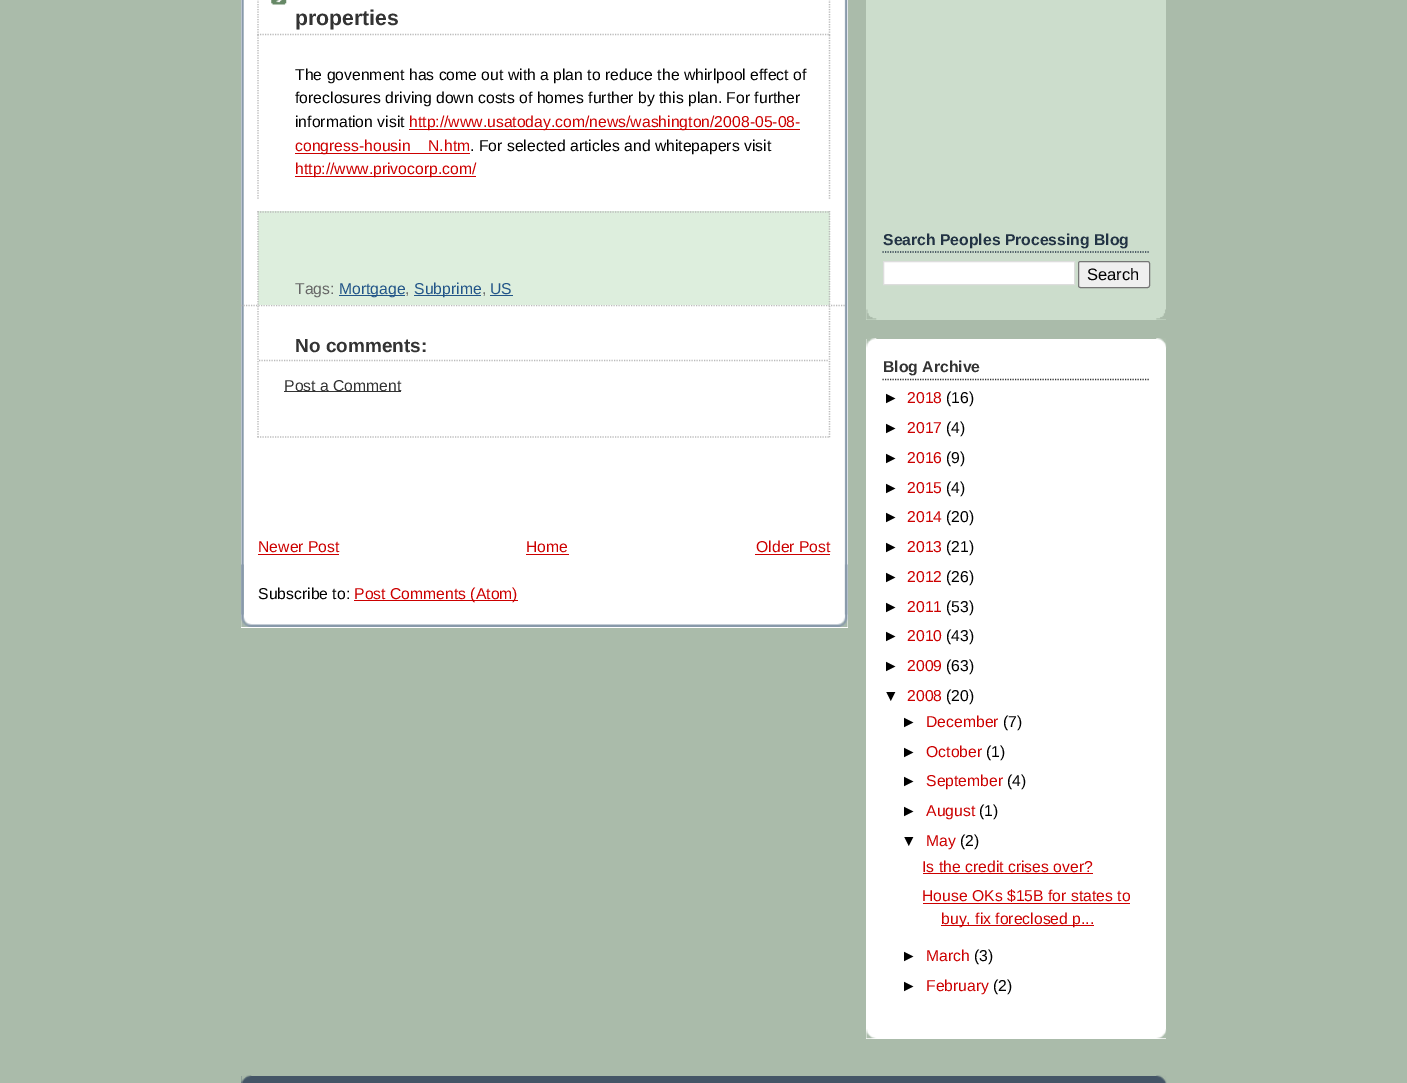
%!PS
<< /PageSize [1407 1083] >> setpagedevice
/m/moveto load def
/l/rlineto load def
/z/closepath load def
/f/fill load def
/s/stroke load def
/q/gsave load def
/Q_/grestore load def
/w/setlinewidth load def
/C { dup -16 bitshift 255 div exch dup -8 bitshift 255 and 255 div exch 255 and 255 div setrgbcolor } def
/F { [ exch dup neg 0 0 3 -1 roll 0 0 ] selectfont } def
/T { moveto show } def
/R { rectfill } def
/Q { 5 dict begin { /r /h /w /y /x } { exch def } forall
  x r add y moveto x w add y 2 copy h add r arct x w add y h add x 1 index r arct
  x y h add x y r arct x y 2 copy exch w add exch r arct closepath end } def
/I { 5 dict begin { /h /w /y /x /name } { exch def } forall
  gsave x y translate w h scale
  w h 8 [w 0 0 h 0 0] name (r) file false 3 colorimage grestore end } def
0 1083 translate 1 -1 scale
4 setmiterlimit
16#AABBAA C
0 0 1407 1083 R
16#FFFFFF C
241 0 607 628 R
(1.rgb) 241 564 607 63 I
(2.rgb) 241 0 607 615 I
16#BBBBBB C
1.2 w
[1.25 1.25] 0 setdash
241 305.5 m 605 0 l s
(3.rgb) 271 0 16 5 I
829.5 -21 m 0 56 l s
257.5 34.5 m 572.5 0 l s
258 -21 m 0 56 l s
/LiberationSans-Bold 21.25 F
16#333333 C
(properties) 295 25 T
16#BBBBBB C
829.5 35 m 0 164 l s
258 35 m 0 164 l s
/LiberationSans-Regular 15.75 F
16#000000 C
(The govenment has come out with a plan to reduce the whirlpool effect of) 295 80 T
(foreclosures driving down costs of homes further by this plan. For further) 295 103 T
(information visit) 295 127 T
16#CC0000 C
409 129 391 1 R
(http://www.usatoday.com/news/washington/2008-05-08-) 409 127 T
295 153 175 1 R
(congress-housin) 295 151 T
(N.htm) 428 151 T
16#000000 C
(. For selected articles and whitepapers visit) 470 151 T
16#CC0000 C
295 176 181 1 R
(http://www.privocorp.com/) 295 174 T
16#DDEEDD C
258 211 572 94 R
16#BBBBBB C
257.5 212 m 572.5 0 l s
829.5 211 m 0 94 l s
258 211 m 0 94 l s
16#666666 C
(Tags:) 295 294 T
16#225588 C
339 295 66 1 R
(Mortgage) 339 294 T
16#666666 C
(,) 405 294 T
16#225588 C
414 295 67 1 R
(Subprime) 414 294 T
16#666666 C
(,) 482 294 T
16#225588 C
490 295 23 1 R
(US) 490 294 T
16#BBBBBB C
829.5 306 m 0 131.5 l s
257.5 437 m 572.5 0 l s
258 306 m 0 131.5 l s
259 360.5 m 570 0 l s
/LiberationSans-Bold 19 F
16#333333 C
(No comments:) 295 352 T
284 391 117 1 R
/LiberationSans-Regular 15.75 F
(Post a Comment) 284 391 T
16#CC0000 C
(Newer Post) 258 552 T
258 554 81 1 R
(Home) 526 552 T
526 554 43 1 R
(Older Post) 756 552 T
755 554 75 1 R
16#000000 C
(Subscribe to:) 258 599 T
16#CC0000 C
354 600 164 1 R
(Post Comments \(Atom\)) 354 599 T
16#CCDDCC C
866 0 300 320 R
(4.rgb) 866 309 300 11 I
16#223344 C
882.5 252 m 267.5 0 l s
/LiberationSans-Bold 15.75 F
(Search Peoples Processing Blog) 883 245 T
16#FFFFFF C
883.5 261.5 m 191 0 l 0 23 l -191 0 l z q f Q_
16#DDDDDD C
1 w
[] 0 setdash
s
16#EFEFEF C
1078.5 261.5 71 26 2 Q q f Q_
16#767676 C
s
/LiberationSans-Regular 16.5 F
16#000000 C
(Search) 1087 280 T
16#FFFFFF C
866 339 300 700 R
(5.rgb) 866 338 301 10 I
(6.rgb) 866 1029 301 10 I
16#333333 C
1.2 w
[1.25 1.25] 0 setdash
882.5 379.5 m 267.5 0 l s
/LiberationSans-Bold 15.75 F
(Blog Archive) 883 372 T
/LiberationSans-Regular 15.75 F
16#000000 C
(►) 883 403 T
16#CC0000 C
(2018) 907 403 T
16#000000 C
(\(16\)) 946 403 T
(►) 883 433 T
16#CC0000 C
(2017) 907 433 T
16#000000 C
(\(4\)) 946 433 T
(►) 883 463 T
16#CC0000 C
(2016) 907 463 T
16#000000 C
(\(9\)) 946 463 T
(►) 883 493 T
16#CC0000 C
(2015) 907 493 T
16#000000 C
(\(4\)) 946 493 T
(►) 883 522 T
16#CC0000 C
(2014) 907 522 T
16#000000 C
(\(20\)) 946 522 T
(►) 883 552 T
16#CC0000 C
(2013) 907 552 T
16#000000 C
(\(21\)) 946 552 T
(►) 883 582 T
16#CC0000 C
(2012) 907 582 T
16#000000 C
(\(26\)) 946 582 T
(►) 883 612 T
16#CC0000 C
(2011) 907 612 T
16#000000 C
(\(53\)) 946 612 T
(►) 883 641 T
16#CC0000 C
(2010) 907 641 T
16#000000 C
(\(43\)) 946 641 T
(►) 883 671 T
16#CC0000 C
(2009) 907 671 T
16#000000 C
(\(63\)) 946 671 T
(▼) 883 701 T
16#CC0000 C
(2008) 907 701 T
16#000000 C
(\(20\)) 946 701 T
(►) 901 727 T
16#CC0000 C
(December) 926 727 T
16#000000 C
(\(7\)) 1003 727 T
(►) 901 757 T
16#CC0000 C
(October) 926 757 T
16#000000 C
(\(1\)) 986 757 T
(►) 901 786 T
16#CC0000 C
(September) 926 786 T
16#000000 C
(\(4\)) 1007 786 T
(►) 901 816 T
16#CC0000 C
(August) 926 816 T
16#000000 C
(\(1\)) 979 816 T
(▼) 901 846 T
16#CC0000 C
(May) 926 846 T
16#000000 C
(\(2\)) 960 846 T
16#CC0000 C
(Is the credit crises over?) 922 872 T
923 873 170 1 R
(House OKs $15B for states to) 922 901 T
923 903 207 1 R
941 925 153 1 R
(buy, fix foreclosed p...) 941 924 T
16#000000 C
(►) 901 961 T
16#CC0000 C
(March) 926 961 T
16#000000 C
(\(3\)) 974 961 T
(►) 901 991 T
16#CC0000 C
(February) 926 991 T
16#000000 C
(\(2\)) 993 991 T
16#445566 C
241 1076 925 7 R
(7.rgb) 241 1075 926 8 I
showpage
